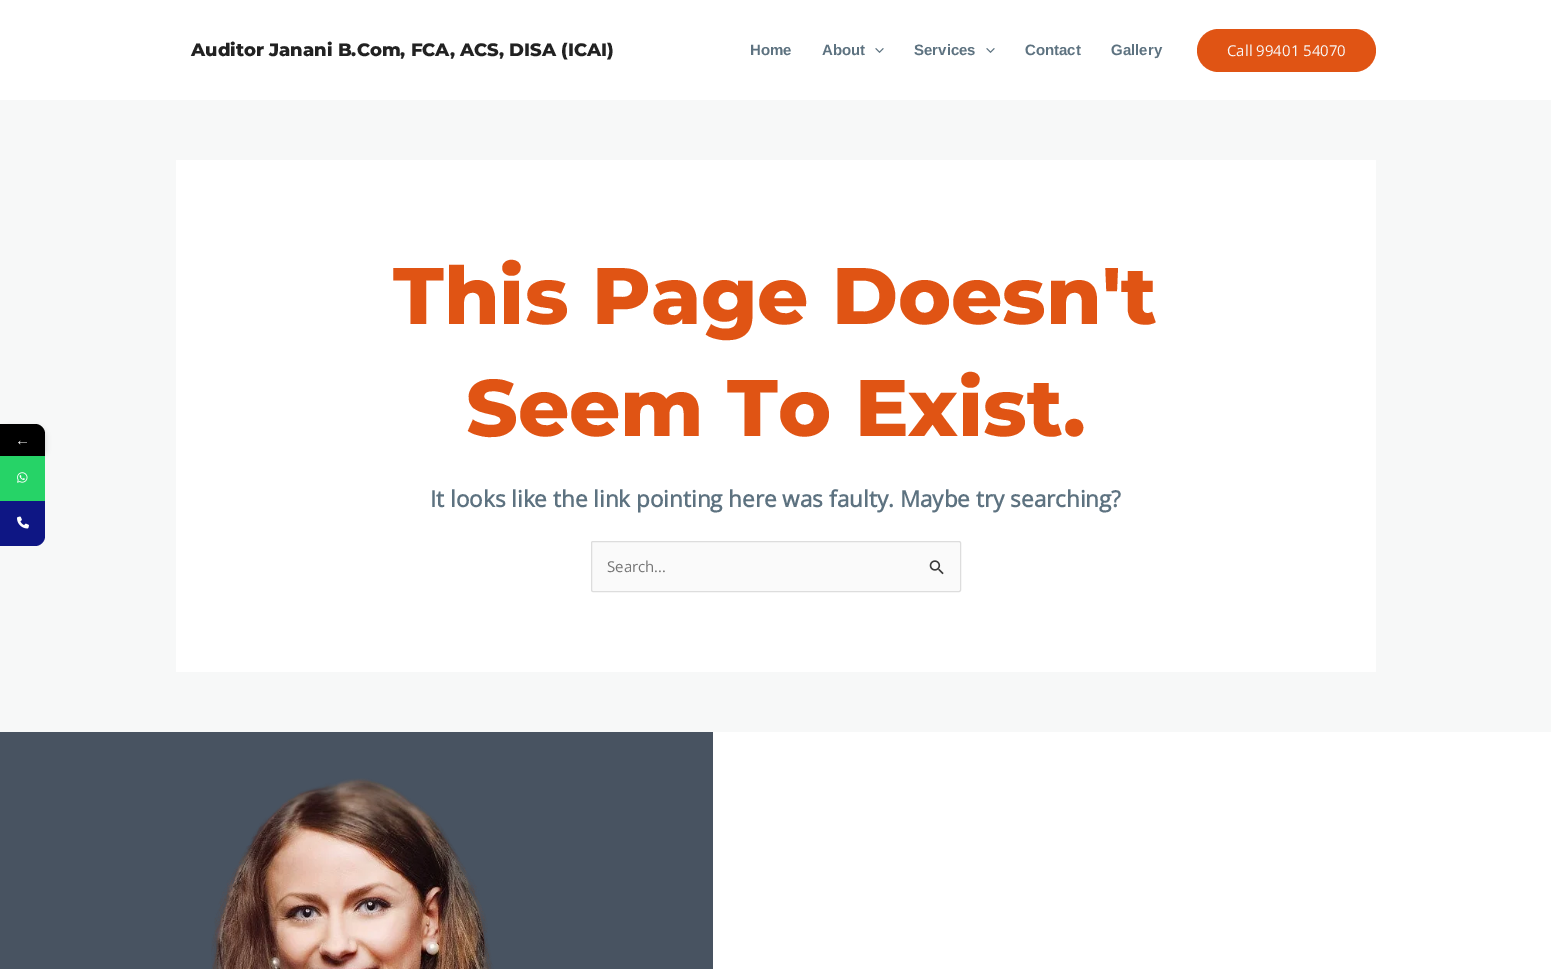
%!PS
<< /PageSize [1551 969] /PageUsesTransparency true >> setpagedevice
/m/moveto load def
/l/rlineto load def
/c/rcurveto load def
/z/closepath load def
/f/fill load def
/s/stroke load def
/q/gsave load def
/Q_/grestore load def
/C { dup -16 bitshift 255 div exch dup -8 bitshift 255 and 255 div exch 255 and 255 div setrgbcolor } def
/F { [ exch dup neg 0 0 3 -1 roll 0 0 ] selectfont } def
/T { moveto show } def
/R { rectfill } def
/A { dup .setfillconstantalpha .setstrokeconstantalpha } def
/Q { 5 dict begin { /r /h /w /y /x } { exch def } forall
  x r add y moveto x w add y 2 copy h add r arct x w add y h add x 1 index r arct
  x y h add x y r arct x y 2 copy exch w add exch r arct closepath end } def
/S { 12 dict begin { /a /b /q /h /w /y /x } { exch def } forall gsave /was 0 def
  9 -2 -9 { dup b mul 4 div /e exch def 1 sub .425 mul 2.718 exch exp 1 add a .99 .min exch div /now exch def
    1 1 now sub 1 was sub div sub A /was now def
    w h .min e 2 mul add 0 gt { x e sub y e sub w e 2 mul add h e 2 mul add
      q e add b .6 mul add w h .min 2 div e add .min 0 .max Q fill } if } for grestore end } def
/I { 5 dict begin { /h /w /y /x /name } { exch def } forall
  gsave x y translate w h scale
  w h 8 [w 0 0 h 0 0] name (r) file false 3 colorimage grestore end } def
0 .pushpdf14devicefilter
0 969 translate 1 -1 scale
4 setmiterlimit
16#F7F8F8 C
0 0 1551 969 R
16#000000 C
0 427 45 32 10 3 .16 S
0 424 m 35 0 l 5.5 0 10 4.5 10 10 c 0 22 l -45 0 l z f
/LiberationSerif-Regular 15 F
16#FFFFFF C
(←) 15 445 T
16#26D367 C
0 456 45 45 R
(1.rgb) 17 472 11 11 I
16#0E1684 C
0 501 m 45 0 l 0 35 l 0 5.5 -4.5 10 -10 10 c -35 0 l z f
(2.rgb) 17 516 12 13 I
16#FFFFFF C
0 0 1551 100 R
/Montserrat-Thin 18 F
16#222222 C
(Auditor Janani B.Com, FCA, ACS, DISA \(ICAI\)) 191 56 T
/LiberationSans-Bold 15 F
16#5D7280 C
(Home) 750 55 T
(About) 822 55 T
(3.rgb) 875 48 9 5 I
(Services) 914 55 T
(3.rgb) 986 48 9 5 I
(Contact) 1025 55 T
(Gallery) 1111 55 T
16#E05414 C
1197 29 179 43 21.5 Q f
/OpenSans-Regular 15 F
16#F7F8F8 C
(Call 99401 54070) 1227 56 T
16#FFFFFF C
176 160 1200 512 R
/Montserrat-Thin 80 F
16#E05414 C
(This Page Doesn't) 393 324 T
(Seem To Exist.) 466 436 T
/OpenSans-Bold 22.5 F
16#5D7280 C
(It looks like the link pointing here was faulty. Maybe try searching?) 430 507 T
16#FAFAFA C
591.5 541.5 369 50 1.5 Q q f Q_
16#DDDDDD C
s
/OpenSans-Regular 15 F
16#757575 C
(Search...) 607 572 T
(4.rgb) 929 560 15 15 I
16#485361 C
0 732 713 237 R
16#FFFFFF C
713 732 838 237 R
(5.rgb) 211 778 283 191 I
.poppdf14devicefilter showpage
